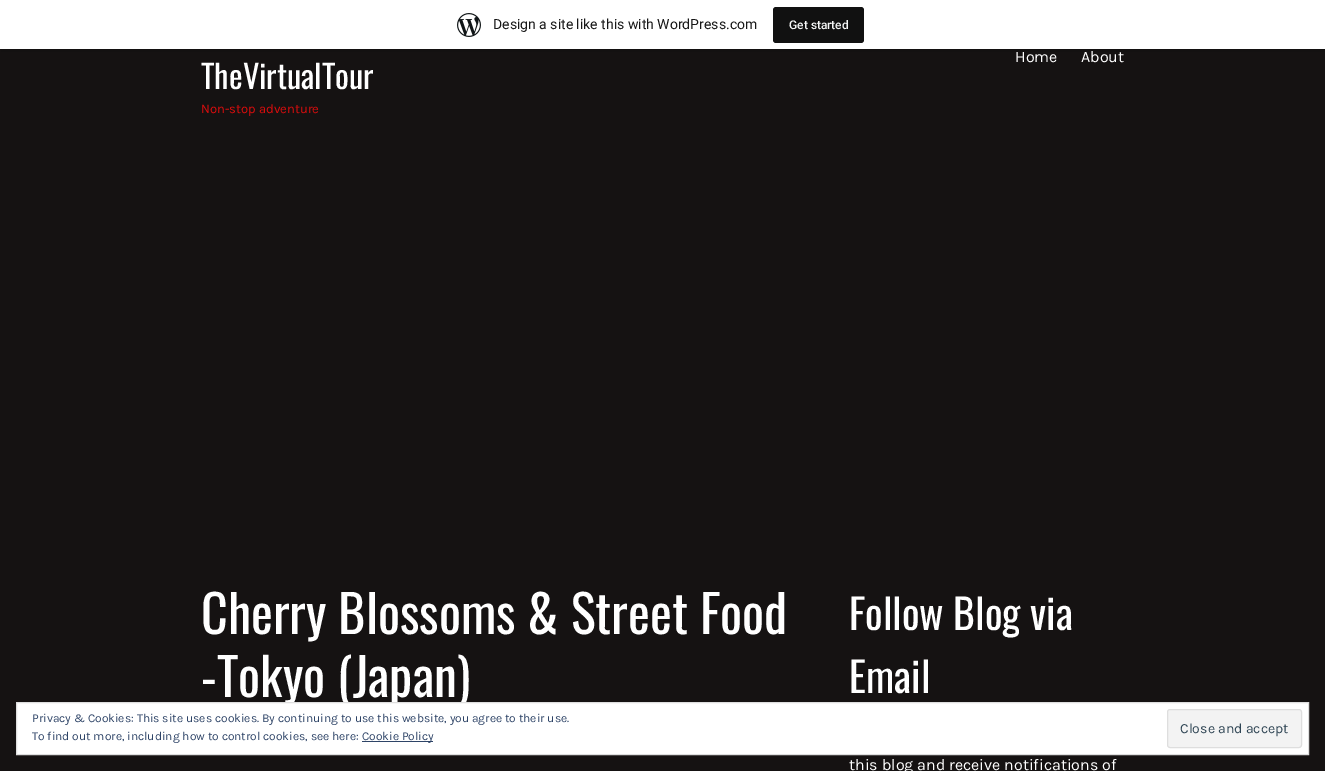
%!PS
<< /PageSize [1325 771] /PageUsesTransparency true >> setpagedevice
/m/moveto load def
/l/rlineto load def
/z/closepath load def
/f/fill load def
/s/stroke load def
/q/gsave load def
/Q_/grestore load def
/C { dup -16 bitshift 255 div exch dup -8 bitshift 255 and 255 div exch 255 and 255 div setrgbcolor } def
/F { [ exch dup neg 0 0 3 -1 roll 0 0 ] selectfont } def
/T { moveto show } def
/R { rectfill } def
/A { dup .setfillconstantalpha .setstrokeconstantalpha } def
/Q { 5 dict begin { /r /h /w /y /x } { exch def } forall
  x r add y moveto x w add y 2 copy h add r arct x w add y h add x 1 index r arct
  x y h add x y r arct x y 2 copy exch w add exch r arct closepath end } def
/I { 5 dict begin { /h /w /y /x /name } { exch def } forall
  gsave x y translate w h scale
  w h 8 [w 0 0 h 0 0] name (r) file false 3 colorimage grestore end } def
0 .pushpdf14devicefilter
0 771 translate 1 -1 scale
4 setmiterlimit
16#151212 C
0 0 1325 771 R
0.08 A
16#000000 C
1 49 m 0 3 l 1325 0 l 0 -49 l -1 0 l 0 46 l z f
1 A
16#FFFFFF C
0 0 1325 49 R
(1.rgb) 457 13 24 24 I
/Roboto-Regular 14 F
16#171717 C
(Design a site like this with WordPress.com) 493 29 T
16#111111 C
773 7 91 36 3 Q f
/Roboto-Medium 12 F
16#F6F7F7 C
(Get started) 789 29 T
/Karla-Regular 16 F
16#FFFFFF C
(Home) 1015 62 T
(About) 1081 62 T
/Oswald-Regular 32.5 F
(TheVirtualTour) 201 89 T
/Karla-Regular 13 F
16#DD0C0C C
(Non-stop adventure) 201 113 T
/Oswald-Regular 52 F
16#FFFFFF C
(Cherry Blossoms & Street Food) 201 634 T
(-Tokyo \(Japan\)) 201 697 T
/Oswald-Regular 41.5 F
(Follow Blog via) 849 630 T
(Email) 849 693 T
/Karla-Regular 16 F
(this blog and receive notifications of) 849 770 T
16.5 702.5 m 1292 0 l 0 52 l -1292 0 l z q f Q_
16#DEDEDE C
s
/Karla-Regular 12 F
16#2E4467 C
(Privacy & Cookies: This site uses cookies. By continuing to use this website, you agree to their use.) 32 722 T
(To find out more, including how to control cookies, see here:) 32 740 T
362 741 71 1 R
(Cookie Policy) 362 740 T
16#F3F3F3 C
1167.5 709.5 134 38 2.5 Q q f Q_
16#DEDEDE C
s
/Karla-Regular 14 F
16#2E4453 C
(Close and accept) 1180 733 T
.poppdf14devicefilter showpage
